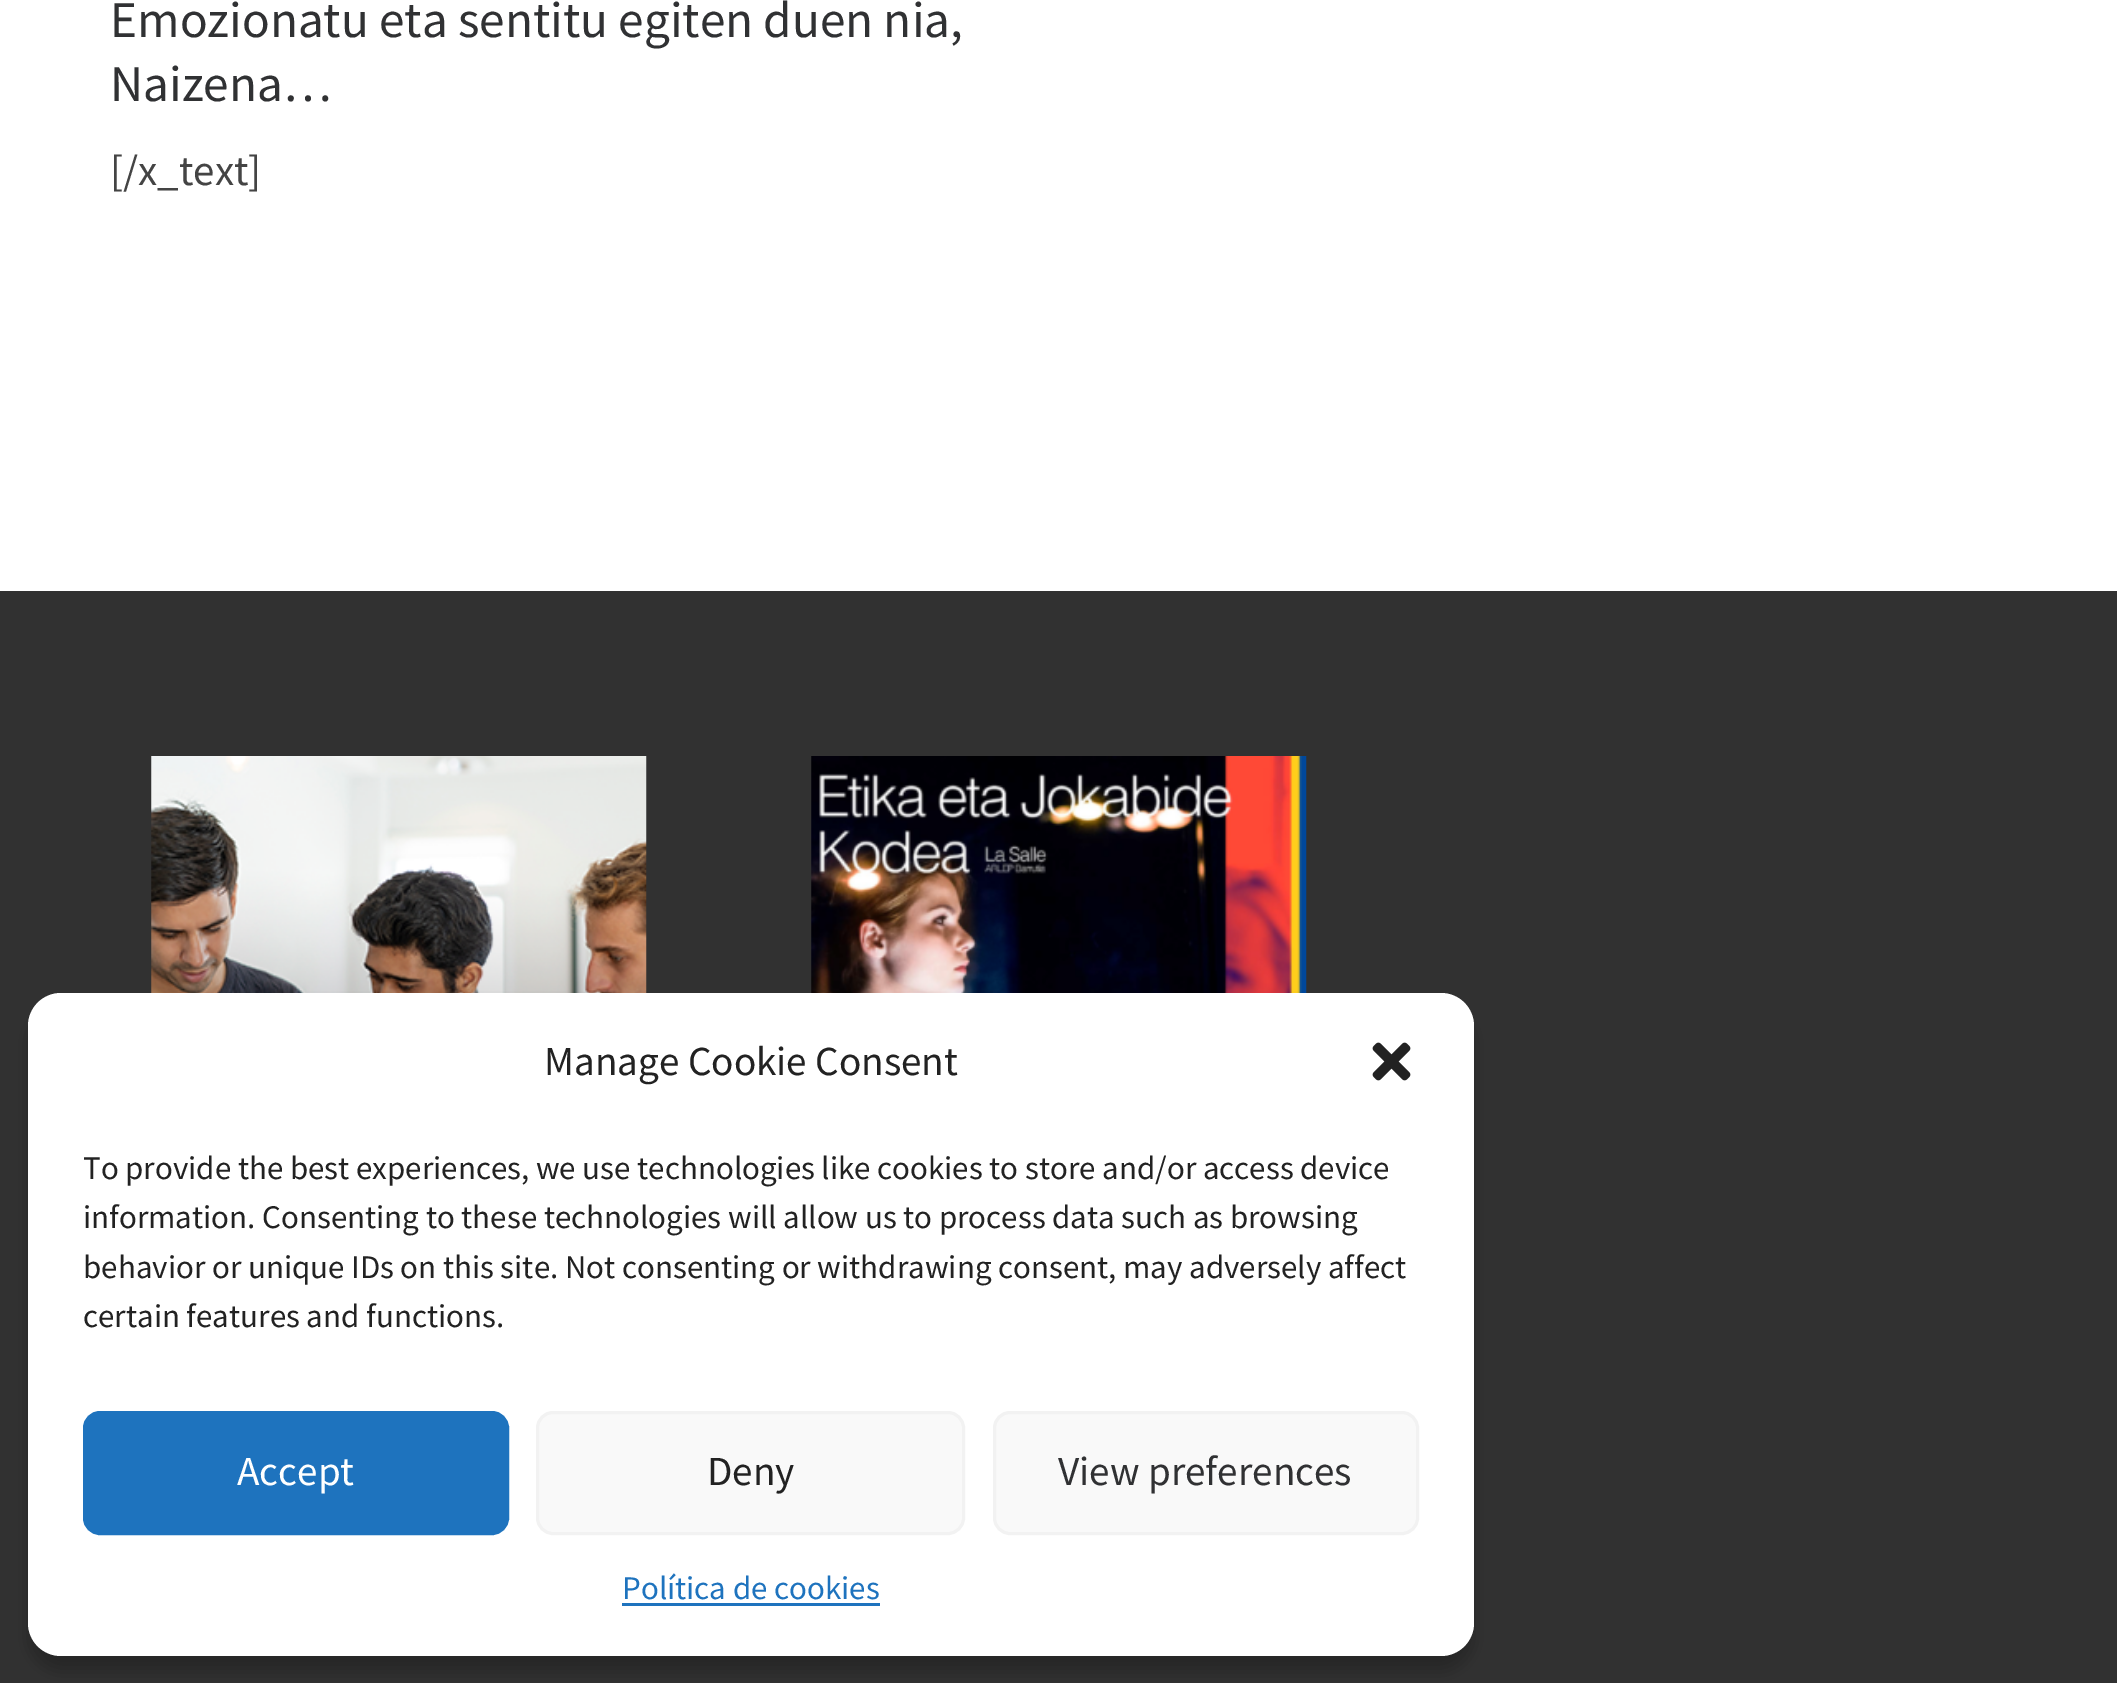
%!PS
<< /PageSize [2117 1683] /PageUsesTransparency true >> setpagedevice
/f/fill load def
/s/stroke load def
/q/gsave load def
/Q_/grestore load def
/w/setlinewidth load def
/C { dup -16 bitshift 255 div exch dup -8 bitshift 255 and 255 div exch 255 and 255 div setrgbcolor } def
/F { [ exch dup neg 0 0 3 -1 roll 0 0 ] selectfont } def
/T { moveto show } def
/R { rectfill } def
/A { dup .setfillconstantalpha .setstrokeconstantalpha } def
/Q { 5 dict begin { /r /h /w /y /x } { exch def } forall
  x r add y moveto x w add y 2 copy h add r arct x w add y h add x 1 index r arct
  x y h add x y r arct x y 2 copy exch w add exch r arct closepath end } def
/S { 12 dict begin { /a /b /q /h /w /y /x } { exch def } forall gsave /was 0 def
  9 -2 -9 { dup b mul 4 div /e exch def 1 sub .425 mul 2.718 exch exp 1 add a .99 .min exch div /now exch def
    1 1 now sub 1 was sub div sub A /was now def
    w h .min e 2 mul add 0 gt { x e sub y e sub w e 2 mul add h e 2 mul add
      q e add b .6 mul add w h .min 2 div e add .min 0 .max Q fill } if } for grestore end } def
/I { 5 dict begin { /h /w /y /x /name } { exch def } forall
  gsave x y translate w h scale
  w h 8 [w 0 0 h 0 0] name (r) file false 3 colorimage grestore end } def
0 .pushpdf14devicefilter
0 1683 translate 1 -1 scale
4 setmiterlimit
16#FFFFFF C
0 0 2117 1683 R
/SourceSansPro-Regular 51.3 F
16#303133 C
(Emozionatu eta sentitu egiten duen nia,) 110 37 T
(Naizena…) 110 101 T
/SourceSansPro-Regular 43 F
16#444444 C
([/x_text]) 110 185 T
16#313131 C
0 591 2117 1092 R
(1.rgb) 151 756 496 237 I
(2.rgb) 811 756 496 237 I
16#000000 C
28 1009 1446 663 33 8 .23 S
16#FFFFFF C
28 993 1446 663 33 Q f
/SourceSansPro-Regular 41.25 F
16#222222 C
(Manage Cookie Consent) 544 1075 T
(3.rgb) 1372 1042 39 39 I
/SourceSansPro-Regular 33 F
(To provide the best experiences, we use technologies like cookies to store and/or access device) 83 1179 T
(information. Consenting to these technologies will allow us to process data such as browsing) 83 1228 T
(behavior or unique IDs on this site. Not consenting or withdrawing consent, may adversely affect) 83 1278 T
(certain features and functions.) 83 1327 T
16#1E73BE C
84.5 1412.5 423 121 15.5 Q q f Q_
3 w
s
/SourceSansPro-Regular 41.25 F
16#FFFFFF C
(Accept) 237 1485 T
16#F9F9F9 C
537.5 1412.5 426 121 15.5 Q q f Q_
16#F2F2F2 C
s
16#222222 C
(Deny) 707 1485 T
16#F9F9F9 C
994.5 1412.5 423 121 15.5 Q q f Q_
16#F2F2F2 C
s
16#303133 C
(View preferences) 1058 1485 T
/SourceSansPro-Regular 33 F
16#1E73BE C
(Política de cookies) 622 1599 T
622 1603 258 3 R
.poppdf14devicefilter showpage
